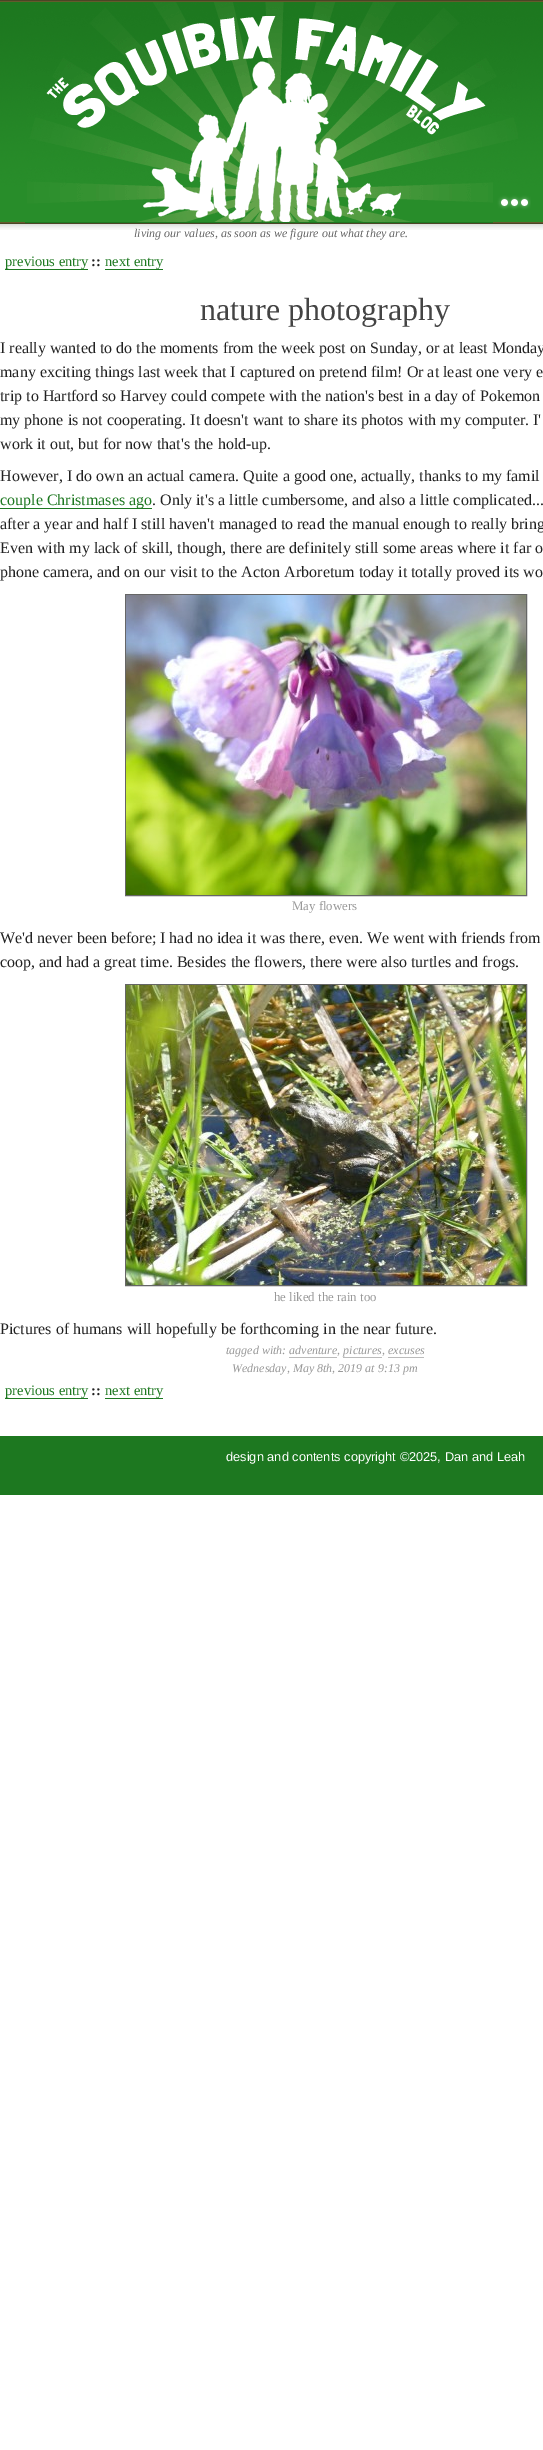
%!PS
<< /PageSize [543 2450] >> setpagedevice
/C { dup -16 bitshift 255 div exch dup -8 bitshift 255 and 255 div exch 255 and 255 div setrgbcolor } def
/F { [ exch dup neg 0 0 3 -1 roll 0 0 ] selectfont } def
/T { moveto show } def
/R { rectfill } def
/I { 5 dict begin { /h /w /y /x /name } { exch def } forall
  gsave x y translate w h scale
  w h 8 [w 0 0 h 0 0] name (r) file false 3 colorimage grestore end } def
0 2450 translate 1 -1 scale
4 setmiterlimit
16#FFFFFF C
0 0 543 2450 R
(2.rgb) 0 0 543 224 I
(3.rgb) 27 2 491 220 I
(1.rgb) 493 182 38 41 I
16#1D7820 C
25 222 468 1 R
(4.rgb) 0 224 543 6 I
/LiberationSerif-Italic 12 F
16#666666 C
(living our values, as soon as we figure out what they are.) 134 237 T
16#1D7820 C
5 269 83 1 R
/LiberationSerif-Regular 14.5 F
(previous entry) 5 266 T
/LiberationSerif-Bold 14.5 F
16#222222 C
(::) 91 266 T
16#1D7820 C
105 269 58 1 R
/LiberationSerif-Regular 14.5 F
(next entry) 105 266 T
/LiberationSerif-Regular 32 F
16#444444 C
(nature photography) 200 320 T
/LiberationSerif-Regular 16 F
16#222222 C
(I really wanted to do the moments from the week post on Sunday, or at least Monday) 0 353 T
(many exciting things last week that I captured on pretend film! Or at least one very e) 0 377 T
(trip to Hartford so Harvey could compete with the nation's best in a day of Pokemon) 0 401 T
(my phone is not cooperating. It doesn't want to share its photos with my computer. I') 0 425 T
(work it out, but for now that's the hold-up.) 0 449 T
(However, I do own an actual camera. Quite a good one, actually, thanks to my famil) 0 481 T
16#1D7820 C
0 508 152 1 R
(couple Christmases ago) 0 505 T
16#222222 C
(. Only it's a little cumbersome, and also a little complicated...) 152 505 T
(after a year and half I still haven't managed to read the manual enough to really bring) 0 529 T
(Even with my lack of skill, though, there are definitely still some areas where it far o) 0 553 T
(phone camera, and on our visit to the Acton Arboretum today it totally proved its wo) 0 577 T
16#666666 C
125.5 594.5 401 301 rectstroke
(5.rgb) 126 595 400 300 I
/LiberationSerif-Regular 12.8 F
16#999999 C
(May flowers) 292 910 T
/LiberationSerif-Regular 16 F
16#222222 C
(We'd never been before; I had no idea it was there, even. We went with friends from) 0 943 T
(coop, and had a great time. Besides the flowers, there were also turtles and frogs.) 0 967 T
16#666666 C
125.5 984.5 401 301 rectstroke
(6.rgb) 126 985 400 300 I
/LiberationSerif-Regular 12.8 F
16#999999 C
(he liked the rain too) 274 1301 T
/LiberationSerif-Regular 16 F
16#222222 C
(Pictures of humans will hopefully be forthcoming in the near future.) 0 1334 T
/LiberationSerif-Italic 12 F
16#999999 C
(tagged with: adventure, pictures, excuses) 226 1354 T
16#BBBBBB C
289 1357 48 1 R
343 1357 39 1 R
388 1357 36 1 R
16#999999 C
(Wednesday, May 8th, 2019 at 9:13 pm) 232 1372 T
16#1D7820 C
5 1398 83 1 R
/LiberationSerif-Regular 14.5 F
(previous entry) 5 1395 T
/LiberationSerif-Bold 14.5 F
16#222222 C
(::) 91 1395 T
16#1D7820 C
105 1398 58 1 R
/LiberationSerif-Regular 14.5 F
(next entry) 105 1395 T
0 1436 543 59 R
/LiberationSans-Regular 12.8 F
16#FFFFFF C
(design and contents copyright ©2025, Dan and Leah) 226 1461 T
showpage
